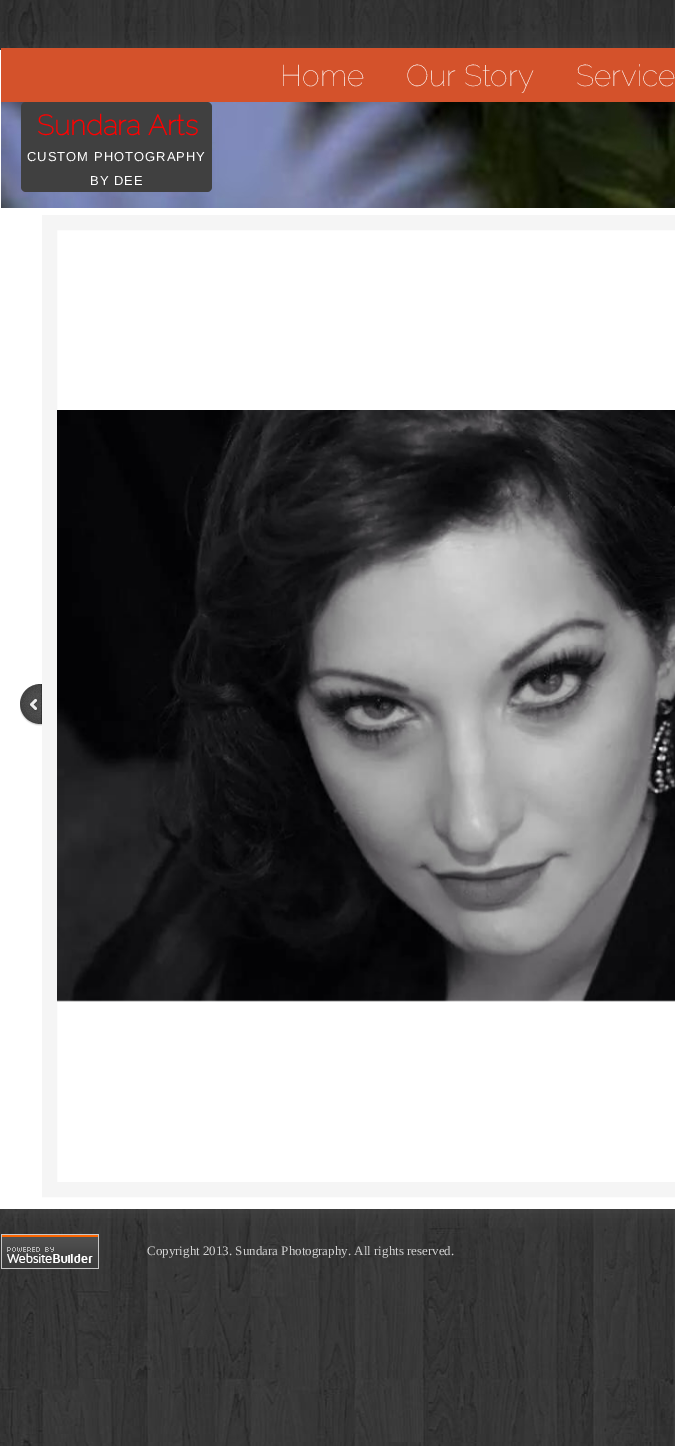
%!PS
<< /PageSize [675 1446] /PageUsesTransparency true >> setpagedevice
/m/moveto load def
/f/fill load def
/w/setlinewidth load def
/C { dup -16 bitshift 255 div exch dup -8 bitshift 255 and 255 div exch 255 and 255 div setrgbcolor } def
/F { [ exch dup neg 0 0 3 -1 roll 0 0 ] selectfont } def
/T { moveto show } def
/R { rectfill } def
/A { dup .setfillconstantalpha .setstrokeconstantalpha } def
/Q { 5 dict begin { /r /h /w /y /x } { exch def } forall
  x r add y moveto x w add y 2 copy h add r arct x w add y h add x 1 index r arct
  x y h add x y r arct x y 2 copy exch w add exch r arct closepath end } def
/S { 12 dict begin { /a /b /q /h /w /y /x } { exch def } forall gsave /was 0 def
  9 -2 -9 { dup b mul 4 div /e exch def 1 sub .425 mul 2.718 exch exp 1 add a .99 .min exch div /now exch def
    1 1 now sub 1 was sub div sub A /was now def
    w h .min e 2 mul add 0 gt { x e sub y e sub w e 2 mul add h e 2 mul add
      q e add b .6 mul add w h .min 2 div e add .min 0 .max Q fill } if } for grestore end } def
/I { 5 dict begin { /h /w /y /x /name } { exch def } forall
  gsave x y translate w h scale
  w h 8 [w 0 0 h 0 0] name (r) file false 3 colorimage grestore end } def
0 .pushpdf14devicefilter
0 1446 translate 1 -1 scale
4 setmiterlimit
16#FFFFFF C
0 0 675 1446 R
(1.rgb) 0 0 675 1446 I
16#444444 C
5 52 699 1159 0 9.5 1 S
16#FFFFFF C
0 50 675 1159 R
16#D4522B C
1 48 674 54 R
/Raleway-Thin 30 F
16#FFFFFF C
(Home) 280 86 T
(Our Story) 406 86 T
(Service) 576 86 T
(2.rgb) 1 102 674 106 I
16#404040 C
21 102 191 90 5 Q f
/Raleway-Bold 28 F
16#FF0000 C
(Sundara Arts) 37 135 T
/LiberationSans-Regular 13 F
16#FFFFFF C
27 161 m 1 0 (CUSTOM PHOTOGRAPHY) ashow
90 185 m 1 0 (BY DEE) ashow
(3.rgb) 20 684 22 42 I
16#F5F5F5 C
15 w
49.5 222.5 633 967 rectstroke
(4.rgb) 57 410 618 592 I
(5.rgb) 1 1234 98 35 I
/LiberationSerif-Regular 13 F
16#D3D3D3 C
(Copyright 2013. Sundara Photography. All rights reserved.) 147 1255 T
.poppdf14devicefilter showpage
